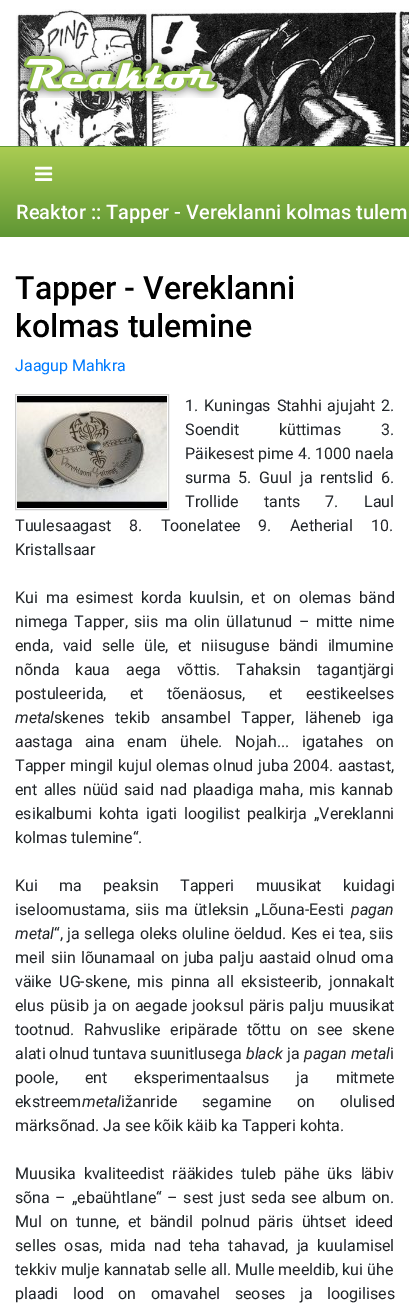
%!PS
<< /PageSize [409 1308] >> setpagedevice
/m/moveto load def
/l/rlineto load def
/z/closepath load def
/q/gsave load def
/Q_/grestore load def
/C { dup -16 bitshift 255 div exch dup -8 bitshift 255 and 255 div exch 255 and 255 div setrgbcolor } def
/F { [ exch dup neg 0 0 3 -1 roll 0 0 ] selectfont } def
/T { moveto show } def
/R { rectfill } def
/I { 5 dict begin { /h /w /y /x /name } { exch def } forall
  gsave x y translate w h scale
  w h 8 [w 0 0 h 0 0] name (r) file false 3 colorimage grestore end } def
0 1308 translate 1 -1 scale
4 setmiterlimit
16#FFFFFF C
0 0 409 1308 R
(1.rgb) 16 9 393 137 I
(2.rgb) 17 48 207 50 I
q 0 146 m 409 0 l 0 1 l -409 0 l z clip newpath
<< /ShadingType 2 /ColorSpace /DeviceRGB /Coords [205 147 205 57] /Extend [true true] /Function << /FunctionType 2 /Domain [0 1] /C0 [.373 .588 .204] /C1 [.667 .8 .322] /N 1 >> >> shfill Q_
q 0 147 m 409 0 l 0 90 l -409 0 l z clip newpath
<< /ShadingType 2 /ColorSpace /DeviceRGB /Coords [205 237 205 147] /Extend [true true] /Function << /FunctionType 2 /Domain [0 1] /C0 [.373 .588 .204] /C1 [.667 .8 .322] /N 1 >> >> shfill Q_
(3.rgb) 35 166 18 15 I
/Roboto-Medium 20 F
(Reaktor :: Tapper - Vereklanni kolmas tulem) 16 219 T
/Roboto-Medium 32 F
16#000000 C
(Tapper - Vereklanni) 15 299 T
(kolmas tulemine) 15 337 T
/Roboto-Regular 16 F
16#007BFF C
(Jaagup Mahkra) 15 371 T
16#CCCCCC C
15.5 394.5 153 115 rectstroke
(4.rgb) 17 396 150 112 I
16#212529 C
185 411 m 2 0 32 (1. Kuningas Stahhi ajujaht 2.) widthshow
185 435 m 36 0 32 (Soendit küttimas 3.) widthshow
(Päikesest pime 4. 1000 naela) 185 459 T
185 483 m 4 0 32 (surma 5. Guul ja rentslid 6.) widthshow
185 507 m 21.5 0 32 (Trollide tants 7. Laul) widthshow
15 531 m 14 0 32 (Tuulesaagast 8. Toonelatee 9. Aetherial 10.) widthshow
(Kristallsaar) 15 555 T
15 603 m 4 0 32 (Kui ma esimest korda kuulsin, et on olemas bänd) widthshow
15 627 m 2.5 0 32 (nimega Tapper, siis ma olin üllatunud – mitte nime) widthshow
15 651 m 5.5 0 32 (enda, vaid selle üle, et niisuguse bändi ilmumine) widthshow
15 675 m 12 0 32 (nõnda kaua aega võttis. Tahaksin tagantjärgi) widthshow
15 699 m 19.5 0 32 (postuleerida, et tõenäosus, et eestikeelses) widthshow
/Roboto-Italic 16 F
(metal) 15 723 T
/Roboto-Regular 16 F
54 723 m 6.75 0 32 (skenes tekib ansambel Tapper, läheneb iga) widthshow
15 747 m 8.5 0 32 (aastaga aina enam ühele. Nojah... igatahes on) widthshow
15 771 m .75 0 32 (Tapper mingil kujul olemas olnud juba 2004. aastast,) widthshow
15 795 m 2 0 32 (ent alles nüüd said nad plaadiga maha, mis kannab) widthshow
15 819 m 3 0 32 (esikalbumi kohta igati loogilist pealkirja „Vereklanni) widthshow
(kolmas tulemine“.) 15 843 T
15 891 m 17.5 0 32 (Kui ma peaksin Tapperi muusikat kuidagi) widthshow
15 915 m 2 0 32 (iseloomustama, siis ma ütleksin „Lõuna-Eesti) widthshow
/Roboto-Italic 16 F
(pagan) 351 915 T
(metal) 15 939 T
/Roboto-Regular 16 F
54 939 m .6 0 32 (“, ja sellega oleks oluline öeldud. Kes ei tea, siis) widthshow
15 963 m 1.25 0 32 (meil siin lõunamaal on juba palju aastaid olnud oma) widthshow
15 987 m 3.25 0 32 (väike UG-skene, mis pinna all eksisteerib, jonnakalt) widthshow
15 1011 m 1.25 0 32 (elus püsib ja on aegade jooksul päris palju muusikat) widthshow
15 1035 m 5.5 0 32 (tootnud. Rahvuslike eripärade tõttu on see skene) widthshow
(alati olnud tuntava suunitlusega) 15 1059 T
/Roboto-Italic 16 F
(black) 246 1059 T
/Roboto-Regular 16 F
(ja) 287 1059 T
/Roboto-Italic 16 F
(pagan metal) 304 1059 T
/Roboto-Regular 16 F
(i) 390 1059 T
15 1083 m 23 0 32 (poole, ent eksperimentaalsus ja mitmete) widthshow
(ekstreem) 15 1107 T
/Roboto-Italic 16 F
(metal) 82 1107 T
/Roboto-Regular 16 F
121 1107 m 21 0 32 (ižanride segamine on olulised) widthshow
(märksõnad. Ja see kõik käib ka Tapperi kohta.) 15 1131 T
15 1179 m 4 0 32 (Muusika kvaliteedist rääkides tuleb pähe üks läbiv) widthshow
15 1203 m 1.6 0 32 (sõna – „ebaühtlane“ – sest just seda see album on.) widthshow
15 1227 m 4.25 0 32 (Mul on tunne, et bändil polnud päris ühtset ideed) widthshow
15 1251 m 4.25 0 32 (selles osas, mida nad teha tahavad, ja kuulamisel) widthshow
(tekkiv mulje kannatab selle all. Mulle meeldib, kui ühe) 15 1275 T
15 1299 m 10.5 0 32 (plaadi lood on omavahel seoses ja loogilises) widthshow
showpage
